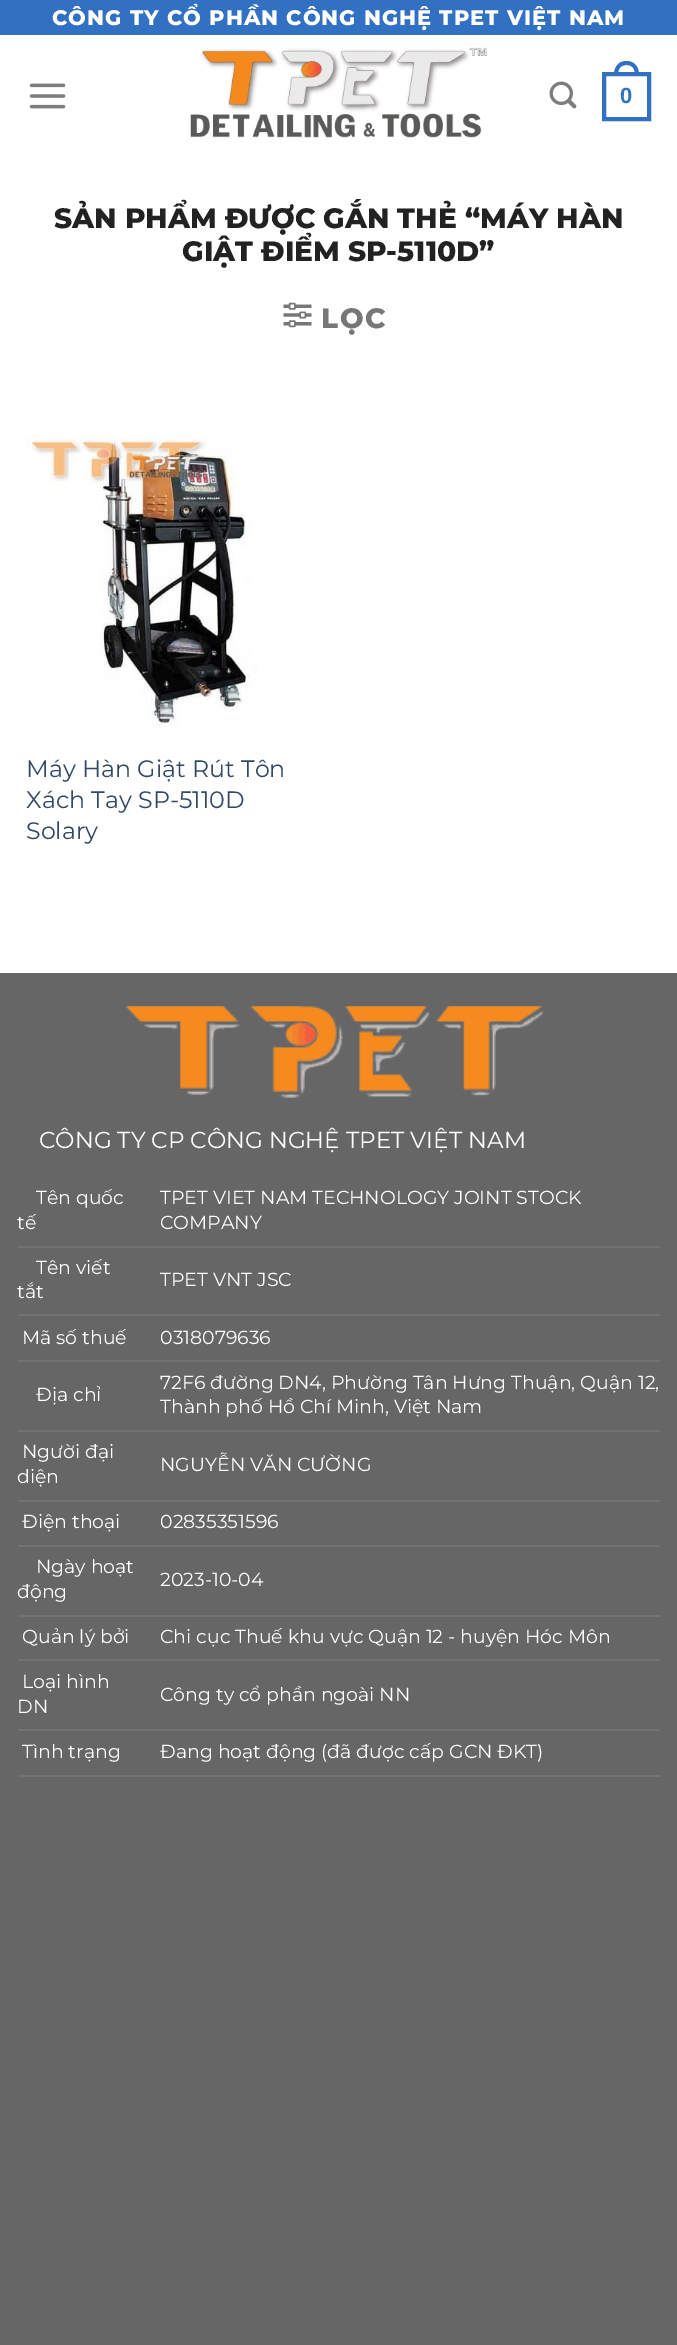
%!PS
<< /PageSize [677 2345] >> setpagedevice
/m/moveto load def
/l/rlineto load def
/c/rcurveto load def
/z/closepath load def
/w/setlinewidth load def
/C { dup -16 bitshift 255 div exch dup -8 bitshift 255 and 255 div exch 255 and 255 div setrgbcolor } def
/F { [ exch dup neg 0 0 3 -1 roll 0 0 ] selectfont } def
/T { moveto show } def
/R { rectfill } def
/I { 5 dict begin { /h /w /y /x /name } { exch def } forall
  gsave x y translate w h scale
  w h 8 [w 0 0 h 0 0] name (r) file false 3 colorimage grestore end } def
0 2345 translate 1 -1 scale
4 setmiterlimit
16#FFFFFF C
0 0 677 2345 R
16#3270C2 C
0 0 677 35 R
/Montserrat-ExtraBold 21 F
16#FFFFFF C
52 25 m 1.05 0 (CÔNG TY CỔ PHẦN CÔNG NGHỆ TPET VIỆT NAM) ashow
(1.rgb) 29 83 37 26 I
(2.rgb) 190 47 297 91 I
(3.rgb) 549 81 28 28 I
16#3270C2 C
4 w
604 74 45 45 rectstroke
626.5 61 m 8.5 0 12.5 6.5 12.5 14 c -25 0 l 0 -7.5 4 -14 12.5 -14 c z 626.5 65 m 6.5 0 8.5 4.5 8.5 10 c -17 0 l 0 -5.5 2 -10 8.5 -10 c z eofill
/LiberationSans-Bold 22 F
(0) 620 103 T
/Montserrat-ExtraBold 28 F
16#222222 C
(SẢN PHẨM ĐƯỢC GẮN THẺ “MÁY HÀN) 54 228 T
(GIẬT ĐIỂM SP-5110D”) 182 261 T
(4.rgb) 283 302 29 26 I
16#777777 C
321 328 m 1.5 0 (LỌC) ashow
(5.rgb) 26 437 231 290 I
/Montserrat-Regular 23.75 F
16#334862 C
(Máy Hàn Giật Rút Tôn) 26 777 T
(Xách Tay SP-5110D) 26 808 T
(Solary) 26 839 T
16#666666 C
0 973 677 1372 R
(6.rgb) 125 1005 419 93 I
/Montserrat-Regular 23.1 F
16#FFFFFF C
(CÔNG TY CP CÔNG NGHỆ TPET VIỆT NAM) 39 1148 T
16#727272 C
18 1246 642 2 R
/Montserrat-Regular 18.9 F
16#FFFFFF C
(Tên quốc) 36 1204 T
(tế) 17 1229 T
(TPET VIET NAM TECHNOLOGY JOINT STOCK) 160 1204 T
(COMPANY) 160 1229 T
16#727272 C
18 1314 642 2 R
16#FFFFFF C
(Tên viết) 36 1274 T
(tắt) 17 1298 T
(TPET VNT JSC) 160 1286 T
16#727272 C
18 1360 642 2 R
16#FFFFFF C
(Mã số thuế) 22 1344 T
(0318079636) 160 1344 T
16#727272 C
18 1430 642 2 R
16#FFFFFF C
(Địa chỉ) 36 1401 T
(72F6 đường DN4, Phường Tân Hưng Thuận, Quận 12,) 160 1389 T
(Thành phố Hồ Chí Minh, Việt Nam) 160 1413 T
16#727272 C
18 1500 642 2 R
16#FFFFFF C
(Người đại) 22 1458 T
(diện) 17 1483 T
(NGUYỄN VĂN CƯỜNG) 160 1471 T
16#727272 C
18 1545 642 2 R
16#FFFFFF C
(Điện thoại) 22 1528 T
(02835351596) 160 1528 T
16#727272 C
18 1615 642 2 R
16#FFFFFF C
(Ngày hoạt) 36 1573 T
(động) 17 1598 T
(2023-10-04) 160 1586 T
16#727272 C
18 1659 642 2 R
16#FFFFFF C
(Quản lý bởi) 22 1643 T
(Chi cục Thuế khu vực Quận 12 - huyện Hóc Môn) 160 1643 T
16#727272 C
18 1729 642 2 R
16#FFFFFF C
(Loại hình) 22 1688 T
(DN) 17 1713 T
(Công ty cổ phần ngoài NN) 160 1701 T
16#727272 C
18 1775 642 2 R
16#FFFFFF C
(Tình trạng) 22 1758 T
(Đang hoạt động \(đã được cấp GCN ĐKT\)) 160 1758 T
showpage
